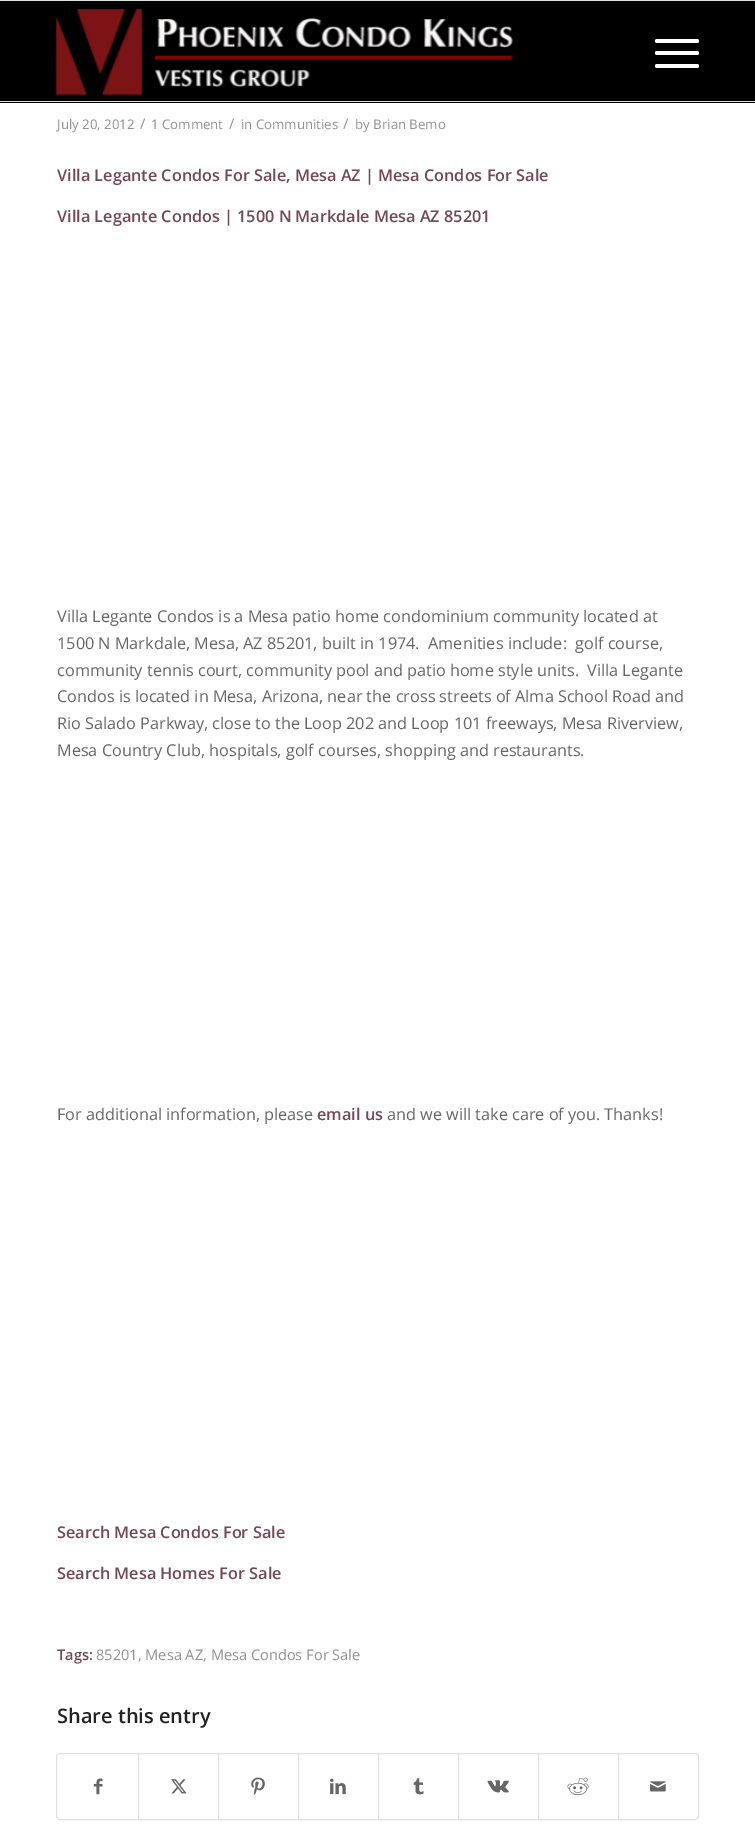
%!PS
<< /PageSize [755 1830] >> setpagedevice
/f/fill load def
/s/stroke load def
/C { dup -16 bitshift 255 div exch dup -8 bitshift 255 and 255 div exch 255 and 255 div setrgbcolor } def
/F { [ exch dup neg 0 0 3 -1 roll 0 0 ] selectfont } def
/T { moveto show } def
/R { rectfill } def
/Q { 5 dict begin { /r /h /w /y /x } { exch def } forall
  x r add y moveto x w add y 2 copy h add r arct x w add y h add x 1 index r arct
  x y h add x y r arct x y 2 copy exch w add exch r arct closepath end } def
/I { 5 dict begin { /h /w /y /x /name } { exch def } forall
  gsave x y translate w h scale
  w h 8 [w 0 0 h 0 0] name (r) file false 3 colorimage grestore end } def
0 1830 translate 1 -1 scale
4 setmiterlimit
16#FFFFFF C
0 0 755 1830 R
16#E1E1E1 C
0 0 755 1 R
16#000000 C
0 1 755 102 R
16#E1E1E1 C
0 101 755 1 R
(1.rgb) 56 9 457 86 I
16#FFFFFF C
655 51 44 4 2 Q f
655 39 44 4 2 Q f
655 64 44 4 2 Q f
/OpenSans-Regular 13.25 F
16#919191 C
(July 20, 2012) 57 129 T
/OpenSans-Regular 14.6 F
(/) 140 129 T
/OpenSans-Regular 13.25 F
(1 Comment) 151 129 T
/OpenSans-Regular 14.6 F
(/) 229 129 T
/OpenSans-Regular 13.25 F
(in Communities) 241 129 T
/OpenSans-Regular 14.6 F
(/) 343 129 T
/OpenSans-Regular 13.25 F
(by Brian Bemo) 355 129 T
/OpenSans-SemiBold 16.25 F
16#734854 C
(Villa Legante Condos For Sale, Mesa AZ | Mesa Condos For Sale) 57 181 T
(Villa Legante Condos | 1500 N Markdale Mesa AZ 85201) 57 222 T
/OpenSans-Regular 16.25 F
16#666666 C
(Villa Legante Condos is a Mesa patio home condominium community located at) 57 622 T
(1500 N Markdale, Mesa, AZ 85201, built in 1974.  Amenities include:  golf course,) 57 649 T
(community tennis court, community pool and patio home style units.  Villa Legante) 57 676 T
(Condos is located in Mesa, Arizona, near the cross streets of Alma School Road and) 57 702 T
(Rio Salado Parkway, close to the Loop 202 and Loop 101 freeways, Mesa Riverview,) 57 729 T
(Mesa Country Club, hospitals, golf courses, shopping and restaurants.) 57 756 T
(For additional information, please) 57 1120 T
/OpenSans-SemiBold 16.25 F
16#734854 C
(email us) 317 1120 T
/OpenSans-Regular 16.25 F
16#666666 C
(and we will take care of you. Thanks!) 387 1120 T
/OpenSans-SemiBold 16.25 F
16#734854 C
(Search Mesa Condos For Sale) 57 1538 T
(Search Mesa Homes For Sale) 57 1579 T
/OpenSans-SemiBold 14.6 F
(Tags:) 57 1660 T
/OpenSans-Regular 14.6 F
16#919191 C
(85201, Mesa AZ, Mesa Condos For Sale) 96 1660 T
/OpenSans-SemiBold 20 F
16#222222 C
(Share this entry) 57 1723 T
16#E1E1E1 C
56.5 1753.5 642 66 3.5 Q s
(2.rgb) 93 1778 10 17 I
138 1754 1 65 R
(3.rgb) 171 1779 16 15 I
218 1754 1 65 R
(4.rgb) 251 1777 14 18 I
298 1754 1 65 R
(5.rgb) 330 1778 16 17 I
378 1754 1 65 R
(6.rgb) 413 1778 11 17 I
458 1754 1 65 R
(7.rgb) 487 1780 22 13 I
538 1754 1 65 R
(8.rgb) 567 1777 22 19 I
618 1754 1 65 R
(9.rgb) 650 1781 16 11 I
showpage
